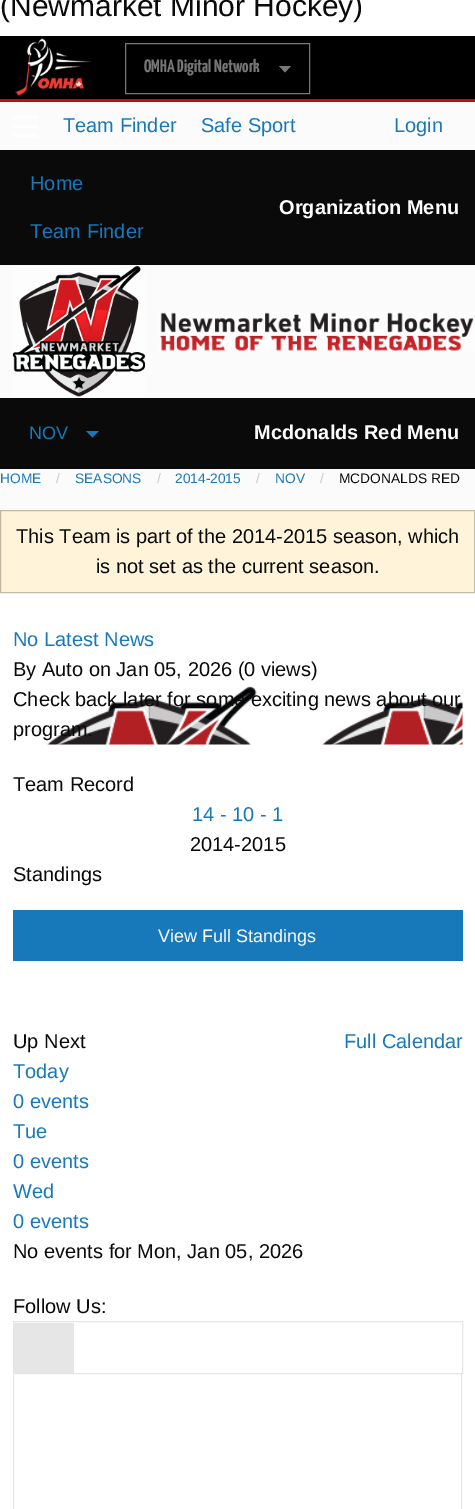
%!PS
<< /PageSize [475 1509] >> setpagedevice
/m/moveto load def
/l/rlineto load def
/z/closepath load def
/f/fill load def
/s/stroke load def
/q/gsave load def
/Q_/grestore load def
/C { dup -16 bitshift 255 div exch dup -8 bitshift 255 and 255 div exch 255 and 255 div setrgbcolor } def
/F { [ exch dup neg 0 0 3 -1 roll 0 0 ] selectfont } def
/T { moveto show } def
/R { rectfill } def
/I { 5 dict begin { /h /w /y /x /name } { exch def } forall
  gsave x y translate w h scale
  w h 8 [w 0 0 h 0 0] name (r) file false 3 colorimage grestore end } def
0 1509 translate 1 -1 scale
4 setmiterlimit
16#FFFFFF C
0 0 475 1509 R
/LiberationSans-Regular 30 F
16#0A0A0A C
(\(Newmarket Minor Hockey\)) 0 16 T
16#000000 C
0 36 475 63 R
16#C60C0C C
0 99 475 3 R
(1.rgb) 15 38 78 58 I
16#767676 C
125.5 43.5 184 50 rectstroke
/YanoneKaffeesatz-ExtraLight 18 F
(OMHA Digital Network) 144 72 T
279 66 m 12 0 l -6 6.5 l z f
16#FBFBFB C
0 102 475 408 R
16#FEFEFE C
13 134 25 3 R
13 125 25 3 R
13 116 25 3 R
/LiberationSans-Regular 20 F
16#1779BA C
(Team Finder) 63 132 T
(Safe Sport) 201 132 T
(Login) 394 132 T
16#0A0A0A C
0 150 475 115 R
16#1779BA C
(Home) 30 190 T
(Team Finder) 30 238 T
/LiberationSans-Bold 20 F
16#FEFEFE C
(Organization Menu) 279 214 T
(2.rgb) 12 266 133 131 I
(3.rgb) 159 312 315 39 I
16#0A0A0A C
0 398 475 71 R
/LiberationSans-Regular 18 F
16#1779BA C
(NOV) 29 439 T
86 431 m 13 0 l -6.5 6.5 l z f
/LiberationSans-Bold 20 F
16#FEFEFE C
(Mcdonalds Red Menu) 254 439 T
/LiberationSans-Regular 13.75 F
16#1779BA C
(HOME) 0 483 T
16#CACACA C
(/) 56 483 T
16#1779BA C
(SEASONS) 75 483 T
16#CACACA C
(/) 157 483 T
16#1779BA C
(2014-2015) 175 483 T
16#CACACA C
(/) 256 483 T
16#1779BA C
(NOV) 275 483 T
16#CACACA C
(/) 320 483 T
16#0A0A0A C
(MCDONALDS RED) 339 483 T
16#FFF3D9 C
.5 510.5 m 474 0 l 0 82 l -474 0 l z q f Q_
16#C2B9A5 C
s
/LiberationSans-Regular 20 F
16#0A0A0A C
(This Team is part of the 2014-2015 season, which) 16 543 T
(is not set as the current season.) 96 573 T
16#1779BA C
(No Latest News) 13 646 T
16#0A0A0A C
(By Auto on Jan 05, 2026 \(0 views\)) 13 676 T
(4.rgb) 47 686 416 59 I
(Check back later for some exciting news about our) 13 706 T
(program.) 13 736 T
(Team Record) 13 791 T
16#1779BA C
(14 - 10 - 1) 192 821 T
16#0A0A0A C
(2014-2015) 190 851 T
(Standings) 13 881 T
16#1779BA C
13 910 450 51 R
/LiberationSans-Regular 18 F
16#FEFEFE C
(View Full Standings) 158 942 T
/LiberationSans-Regular 20 F
16#0A0A0A C
(Up Next) 13 1048 T
16#1779BA C
(Full Calendar) 344 1048 T
(Today) 13 1078 T
(0 events) 13 1108 T
(Tue) 13 1138 T
(0 events) 13 1168 T
(Wed) 13 1198 T
(0 events) 13 1228 T
16#0A0A0A C
(No events for Mon, Jan 05, 2026) 13 1258 T
(Follow Us:) 13 1313 T
16#E6E6E6 C
13.5 1321.5 449 52 rectstroke
14 1323 60 50 R
461 1374 1 135 R
13 1374 1 135 R
showpage
